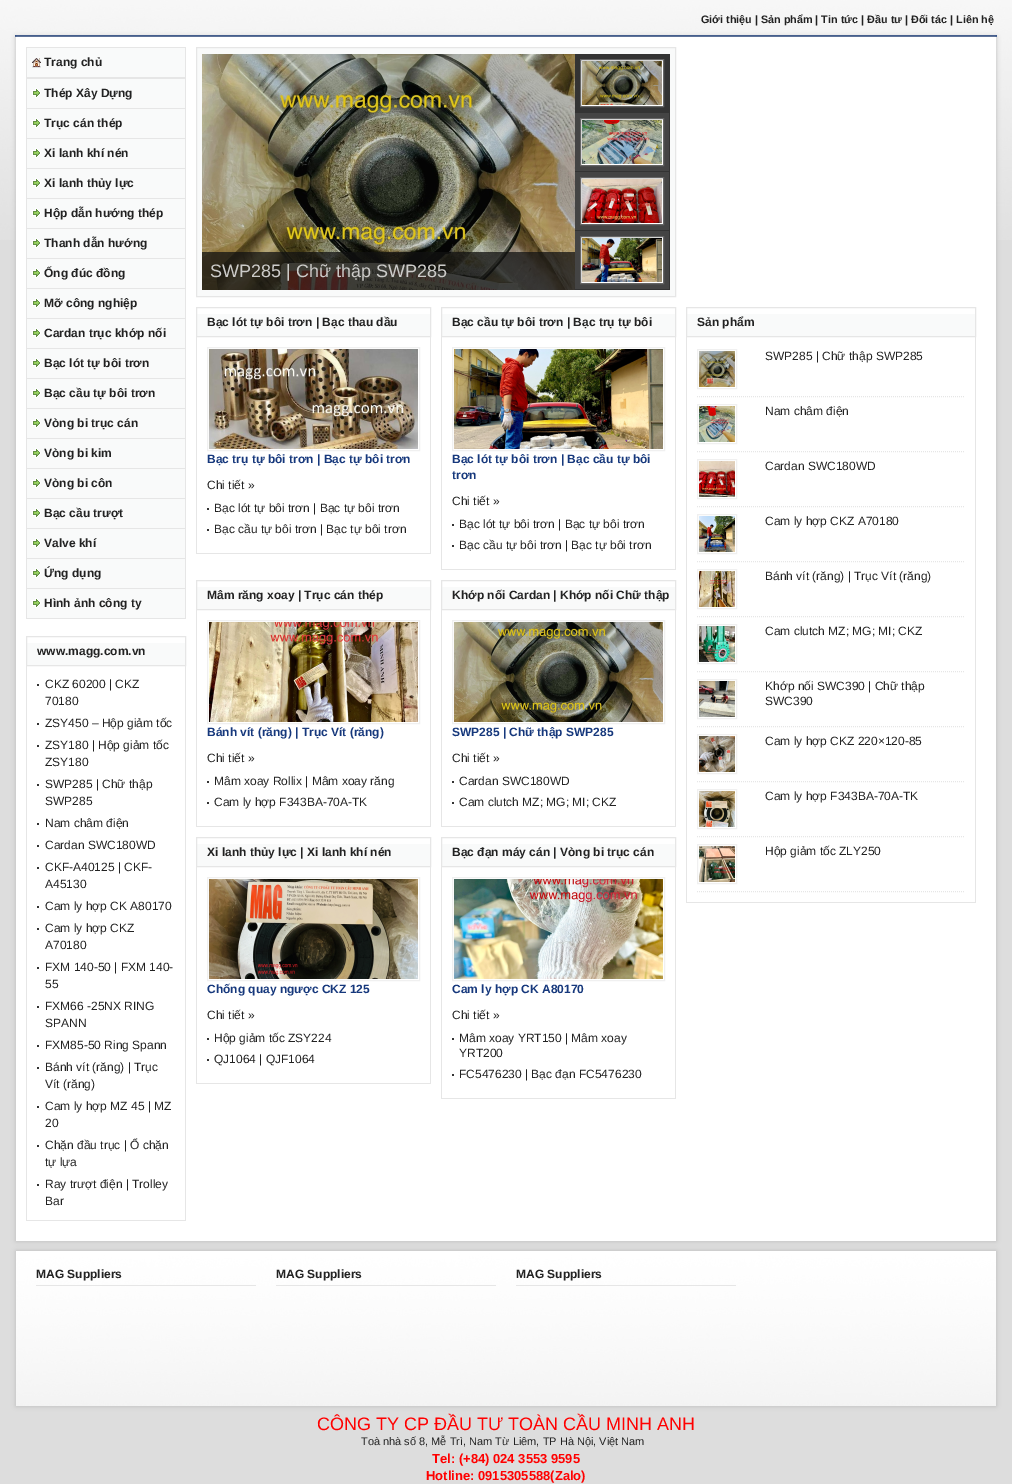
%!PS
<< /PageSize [1012 1484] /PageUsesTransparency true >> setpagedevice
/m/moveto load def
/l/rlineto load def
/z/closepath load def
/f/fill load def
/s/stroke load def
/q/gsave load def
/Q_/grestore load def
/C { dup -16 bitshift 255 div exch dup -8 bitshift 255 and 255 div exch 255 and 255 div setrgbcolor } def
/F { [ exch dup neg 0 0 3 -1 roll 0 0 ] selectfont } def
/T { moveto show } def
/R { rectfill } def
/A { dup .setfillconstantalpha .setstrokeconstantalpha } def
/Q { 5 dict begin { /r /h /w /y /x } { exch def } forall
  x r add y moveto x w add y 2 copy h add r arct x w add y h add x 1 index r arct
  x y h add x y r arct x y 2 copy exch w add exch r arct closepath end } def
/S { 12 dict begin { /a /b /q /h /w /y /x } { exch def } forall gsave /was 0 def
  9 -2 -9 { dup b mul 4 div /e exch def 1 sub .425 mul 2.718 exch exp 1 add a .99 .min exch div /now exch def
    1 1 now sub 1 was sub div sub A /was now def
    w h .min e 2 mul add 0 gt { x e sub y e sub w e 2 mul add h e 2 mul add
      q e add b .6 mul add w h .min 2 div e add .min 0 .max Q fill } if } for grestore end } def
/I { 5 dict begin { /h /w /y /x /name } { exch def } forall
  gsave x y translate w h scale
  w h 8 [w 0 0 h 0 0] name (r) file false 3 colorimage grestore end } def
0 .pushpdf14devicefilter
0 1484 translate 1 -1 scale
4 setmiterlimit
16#DDDDDD C
0 0 1012 1484 R
(1.rgb) 0 0 1012 240 I
16#16387C C
15 35 982 2 R
/LiberationSans-Bold 10.8 F
16#222222 C
(Giới thiệu | Sản phẩm | Tin tức | Đầu tư | Đối tác | Liên hệ) 701 23 T
16#BBBBBB C
16 37 980 1204 0 2.5 1 S
16#FFFFFF C
16 37 980 1204 R
16#E6E6E6 C
26 47 160 1 R
16#F9FAFA C
27 48 158 29 R
(2.rgb) 32 58 9 10 I
16#E6E6E6 C
185 48 1 30 R
26 77 160 2 R
26 48 1 30 R
/LiberationSans-Bold 12 F
16#222222 C
(Trang chủ) 44 66 T
16#F9FAFA C
27 79 158 29 R
(3.rgb) 32 88 9 10 I
16#E6E6E6 C
185 79 1 540 R
26 108 160 1 R
26 79 1 30 R
16#222222 C
(Thép Xây Dựng) 44 97 T
16#F9FAFA C
27 109 158 29 R
(3.rgb) 32 118 9 10 I
16#E6E6E6 C
26 138 160 1 R
26 109 1 30 R
16#222222 C
(Trục cán thép) 44 127 T
16#F9FAFA C
27 139 158 29 R
(3.rgb) 32 148 9 10 I
16#E6E6E6 C
26 168 160 1 R
26 139 1 30 R
16#222222 C
(Xi lanh khí nén) 44 157 T
16#F9FAFA C
27 169 158 29 R
(3.rgb) 32 178 9 10 I
16#E6E6E6 C
26 198 160 1 R
26 169 1 30 R
16#222222 C
(Xi lanh thủy lực) 44 187 T
16#F9FAFA C
27 199 158 29 R
(3.rgb) 32 208 9 10 I
16#E6E6E6 C
26 228 160 1 R
26 199 1 30 R
16#222222 C
(Hộp dẫn hướng thép) 44 217 T
16#F9FAFA C
27 229 158 29 R
(3.rgb) 32 238 9 10 I
16#E6E6E6 C
26 258 160 1 R
26 229 1 30 R
16#222222 C
(Thanh dẫn hướng) 44 247 T
16#F9FAFA C
27 259 158 29 R
(3.rgb) 32 268 9 10 I
16#E6E6E6 C
26 288 160 1 R
26 259 1 30 R
16#222222 C
(Ống đúc đồng) 44 277 T
16#F9FAFA C
27 289 158 29 R
(3.rgb) 32 298 9 10 I
16#E6E6E6 C
26 318 160 1 R
26 289 1 30 R
16#222222 C
(Mỡ công nghiệp) 44 307 T
16#F9FAFA C
27 319 158 29 R
(3.rgb) 32 328 9 10 I
16#E6E6E6 C
26 348 160 1 R
26 319 1 30 R
16#222222 C
(Cardan trục khớp nối) 44 337 T
16#F9FAFA C
27 349 158 29 R
(3.rgb) 32 358 9 10 I
16#E6E6E6 C
26 378 160 1 R
26 349 1 30 R
16#222222 C
(Bạc lót tự bôi trơn) 44 367 T
16#F9FAFA C
27 379 158 29 R
(3.rgb) 32 388 9 10 I
16#E6E6E6 C
26 408 160 1 R
26 379 1 30 R
16#222222 C
(Bạc cầu tự bôi trơn) 44 397 T
16#F9FAFA C
27 409 158 29 R
(3.rgb) 32 418 9 10 I
16#E6E6E6 C
26 438 160 1 R
26 409 1 30 R
16#222222 C
(Vòng bi trục cán) 44 427 T
16#F9FAFA C
27 439 158 29 R
(3.rgb) 32 448 9 10 I
16#E6E6E6 C
26 468 160 1 R
26 439 1 30 R
16#222222 C
(Vòng bi kim) 44 457 T
16#F9FAFA C
27 469 158 29 R
(3.rgb) 32 478 9 10 I
16#E6E6E6 C
26 498 160 1 R
26 469 1 30 R
16#222222 C
(Vòng bi côn) 44 487 T
16#F9FAFA C
27 499 158 29 R
(3.rgb) 32 508 9 10 I
16#E6E6E6 C
26 528 160 1 R
26 499 1 30 R
16#222222 C
(Bạc cầu trượt) 44 517 T
16#F9FAFA C
27 529 158 29 R
(3.rgb) 32 538 9 10 I
16#E6E6E6 C
26 558 160 1 R
26 529 1 30 R
16#222222 C
(Valve khí) 44 547 T
16#F9FAFA C
27 559 158 29 R
(3.rgb) 32 568 9 10 I
16#E6E6E6 C
26 588 160 1 R
26 559 1 30 R
16#222222 C
(Ứng dụng) 44 577 T
16#F9FAFA C
27 589 158 29 R
(3.rgb) 32 598 9 10 I
16#E6E6E6 C
26 618 160 1 R
26 589 1 30 R
16#222222 C
(Hình ảnh công ty) 44 607 T
16#F9FAFA C
27 643 158 22 R
16#E6E6E6 C
26.5 636.5 159 29 rectstroke
16#222222 C
(www.magg.com.vn) 37 655 T
16#E6E6E6 C
185 666 1 555 R
26 1220 160 1 R
26 666 1 555 R
16#333333 C
37 684 2 2 R
/LiberationSans-Regular 12 F
16#222222 C
(CKZ 60200 | CKZ) 45 688 T
(70180) 45 705 T
16#333333 C
37 723 2 2 R
16#222222 C
(ZSY450 – Hộp giảm tốc) 45 727 T
16#333333 C
37 745 2 2 R
16#222222 C
(ZSY180 | Hộp giảm tốc) 45 749 T
(ZSY180) 45 766 T
16#333333 C
37 784 2 2 R
16#222222 C
(SWP285 | Chữ thập) 45 788 T
(SWP285) 45 805 T
16#333333 C
37 823 2 2 R
16#222222 C
(Nam châm điện) 45 827 T
16#333333 C
37 845 2 2 R
16#222222 C
(Cardan SWC180WD) 45 849 T
16#333333 C
37 867 2 2 R
16#222222 C
(CKF-A40125 | CKF-) 45 871 T
(A45130) 45 888 T
16#333333 C
37 906 2 2 R
16#222222 C
(Cam ly hợp CK A80170) 45 910 T
16#333333 C
37 928 2 2 R
16#222222 C
(Cam ly hợp CKZ) 45 932 T
(A70180) 45 949 T
16#333333 C
37 967 2 2 R
16#222222 C
(FXM 140-50 | FXM 140-) 45 971 T
(55) 45 988 T
16#333333 C
37 1006 2 2 R
16#222222 C
(FXM66 -25NX RING) 45 1010 T
(SPANN) 45 1027 T
16#333333 C
37 1045 2 2 R
16#222222 C
(FXM85-50 Ring Spann) 45 1049 T
16#333333 C
37 1067 2 2 R
16#222222 C
(Bánh vít \(răng\) | Trục) 45 1071 T
(Vít \(răng\)) 45 1088 T
16#333333 C
37 1106 2 2 R
16#222222 C
(Cam ly hợp MZ 45 | MZ) 45 1110 T
(20) 45 1127 T
16#333333 C
37 1145 2 2 R
16#222222 C
(Chặn đầu trục | Ổ chặn) 45 1149 T
(tự lựa) 45 1166 T
16#333333 C
37 1184 2 2 R
16#222222 C
(Ray trượt điện | Trolley) 45 1188 T
(Bar) 45 1205 T
16#F9FAFA C
196.5 47.5 m 479 0 l 0 249 l -479 0 l z q f Q_
16#E6E6E6 C
s
(4.rgb) 202 54 373 236 I
0.75 A
16#111111 C
202 252 373 38 R
/LiberationSans-Regular 18 F
1 A
16#CCCBC9 C
(SWP285 | Chữ thập SWP285) 210 277 T
16#333333 C
575 54 95 236 R
16#FFFFFF C
580.5 59.5 m 83 0 l 0 47 l -83 0 l z q f Q_
16#666666 C
s
(5.rgb) 582 61 80 44 I
16#444444 C
575 113 94 58 R
16#FFFFFF C
580.5 118.5 m 83 0 l 0 47 l -83 0 l z q f Q_
16#666666 C
s
(6.rgb) 582 120 80 44 I
16#444444 C
575 172 94 58 R
16#FFFFFF C
580.5 177.5 m 83 0 l 0 47 l -83 0 l z q f Q_
16#666666 C
s
(7.rgb) 582 179 80 44 I
16#444444 C
575 231 94 58 R
16#FFFFFF C
580.5 236.5 m 83 0 l 0 47 l -83 0 l z q f Q_
16#666666 C
s
(8.rgb) 582 238 80 44 I
16#F9FAFA C
197 314 233 22 R
16#E6E6E6 C
196.5 307.5 234 29 rectstroke
/LiberationSans-Bold 12 F
16#222222 C
(Bạc lót tự bôi trơn | Bạc thau dầu) 207 326 T
16#E6E6E6 C
430 337 1 217 R
196 553 235 1 R
196 337 1 217 R
16#F0F0F0 C
207.5 347.5 212 103 rectstroke
(9.rgb) 209 349 209 100 I
16#16387C C
(Bạc trụ tự bôi trơn | Bạc tự bôi trơn) 207 463 T
/LiberationSans-Regular 12 F
16#222222 C
(Chi tiết ») 207 489 T
16#333333 C
207 508 2 2 R
16#222222 C
(Bạc lót tự bôi trơn | Bạc tự bôi trơn) 214 512 T
16#333333 C
207 529 2 2 R
16#222222 C
(Bạc cầu tự bôi trơn | Bạc tự bôi trơn) 214 533 T
16#F9FAFA C
442 314 233 22 R
16#E6E6E6 C
441.5 307.5 234 29 rectstroke
/LiberationSans-Bold 12 F
16#222222 C
(Bạc cầu tự bôi trơn | Bạc trụ tự bôi) 452 326 T
16#E6E6E6 C
675 337 1 233 R
441 569 235 1 R
441 337 1 233 R
16#F0F0F0 C
452.5 347.5 212 103 rectstroke
(10.rgb) 454 349 209 100 I
16#16387C C
(Bạc lót tự bôi trơn | Bạc cầu tự bôi) 452 463 T
(trơn) 452 479 T
/LiberationSans-Regular 12 F
16#222222 C
(Chi tiết ») 452 505 T
16#333333 C
452 524 2 2 R
16#222222 C
(Bạc lót tự bôi trơn | Bạc tự bôi trơn) 459 528 T
16#333333 C
452 545 2 2 R
16#222222 C
(Bạc cầu tự bôi trơn | Bạc tự bôi trơn) 459 549 T
16#F9FAFA C
197 587 233 22 R
16#E6E6E6 C
196.5 580.5 234 29 rectstroke
/LiberationSans-Bold 12 F
16#222222 C
(Mâm răng xoay | Trục cán thép) 207 599 T
16#E6E6E6 C
430 610 1 217 R
196 826 235 1 R
196 610 1 217 R
16#F0F0F0 C
207.5 620.5 212 103 rectstroke
(11.rgb) 209 622 209 100 I
16#16387C C
(Bánh vít \(răng\) | Trục Vít \(răng\)) 207 736 T
/LiberationSans-Regular 12 F
16#222222 C
(Chi tiết ») 207 762 T
16#333333 C
207 781 2 2 R
16#222222 C
(Mâm xoay Rollix | Mâm xoay răng) 214 785 T
16#333333 C
207 802 2 2 R
16#222222 C
(Cam ly hợp F343BA-70A-TK) 214 806 T
16#F9FAFA C
442 587 233 22 R
16#E6E6E6 C
441.5 580.5 234 29 rectstroke
/LiberationSans-Bold 12 F
16#222222 C
(Khớp nối Cardan | Khớp nối Chữ thập) 452 599 T
16#E6E6E6 C
675 610 1 217 R
441 826 235 1 R
441 610 1 217 R
16#F0F0F0 C
452.5 620.5 212 103 rectstroke
(12.rgb) 454 622 209 100 I
16#16387C C
(SWP285 | Chữ thập SWP285) 452 736 T
/LiberationSans-Regular 12 F
16#222222 C
(Chi tiết ») 452 762 T
16#333333 C
452 781 2 2 R
16#222222 C
(Cardan SWC180WD) 459 785 T
16#333333 C
452 802 2 2 R
16#222222 C
(Cam clutch MZ; MG; MI; CKZ) 459 806 T
16#F9FAFA C
197 844 233 22 R
16#E6E6E6 C
196.5 837.5 234 29 rectstroke
/LiberationSans-Bold 12 F
16#222222 C
(Xi lanh thủy lực | Xi lanh khí nén) 207 856 T
16#E6E6E6 C
430 867 1 217 R
196 1083 235 1 R
196 867 1 217 R
16#F0F0F0 C
207.5 877.5 212 103 rectstroke
(13.rgb) 209 879 209 100 I
16#16387C C
(Chống quay ngược CKZ 125) 207 993 T
/LiberationSans-Regular 12 F
16#222222 C
(Chi tiết ») 207 1019 T
16#333333 C
207 1038 2 2 R
16#222222 C
(Hộp giảm tốc ZSY224) 214 1042 T
16#333333 C
207 1059 2 2 R
16#222222 C
(QJ1064 | QJF1064) 214 1063 T
16#F9FAFA C
442 844 233 22 R
16#E6E6E6 C
441.5 837.5 234 29 rectstroke
/LiberationSans-Bold 12 F
16#222222 C
(Bạc đạn máy cán | Vòng bi trục cán) 452 856 T
16#E6E6E6 C
675 867 1 232 R
441 1098 235 1 R
441 867 1 232 R
16#F0F0F0 C
452.5 877.5 212 103 rectstroke
(14.rgb) 454 879 209 100 I
16#16387C C
(Cam ly hợp CK A80170) 452 993 T
/LiberationSans-Regular 12 F
16#222222 C
(Chi tiết ») 452 1019 T
16#333333 C
452 1038 2 2 R
16#222222 C
(Mâm xoay YRT150 | Mâm xoay) 459 1042 T
(YRT200) 459 1057 T
16#333333 C
452 1074 2 2 R
16#222222 C
(FC5476230 | Bạc đạn FC5476230) 459 1078 T
16#F9FAFA C
687 314 288 22 R
16#E6E6E6 C
686.5 307.5 289 29 rectstroke
/LiberationSans-Bold 12 F
16#222222 C
(Sản phẩm) 697 326 T
16#E6E6E6 C
975 337 1 566 R
686 902 290 1 R
686 337 1 566 R
[1 1] 0 setdash
697 396.5 m 268 0 l s
16#F0F0F0 C
[] 0 setdash
697.5 349.5 39 39 rectstroke
(15.rgb) 699 351 36 36 I
/LiberationSans-Regular 12 F
16#222222 C
(SWP285 | Chữ thập SWP285) 765 360 T
16#E6E6E6 C
[1 1] 0 setdash
697 451.5 m 268 0 l s
16#F0F0F0 C
[] 0 setdash
697.5 404.5 39 39 rectstroke
(16.rgb) 699 406 36 36 I
16#222222 C
(Nam châm điện) 765 415 T
16#E6E6E6 C
[1 1] 0 setdash
697 506.5 m 268 0 l s
16#F0F0F0 C
[] 0 setdash
697.5 459.5 39 39 rectstroke
(17.rgb) 699 461 36 36 I
16#222222 C
(Cardan SWC180WD) 765 470 T
16#E6E6E6 C
[1 1] 0 setdash
697 561.5 m 268 0 l s
16#F0F0F0 C
[] 0 setdash
697.5 514.5 39 39 rectstroke
(18.rgb) 699 516 36 36 I
16#222222 C
(Cam ly hợp CKZ A70180) 765 525 T
16#E6E6E6 C
[1 1] 0 setdash
697 616.5 m 268 0 l s
16#F0F0F0 C
[] 0 setdash
697.5 569.5 39 39 rectstroke
(19.rgb) 699 571 36 36 I
16#222222 C
(Bánh vít \(răng\) | Trục Vít \(răng\)) 765 580 T
16#E6E6E6 C
[1 1] 0 setdash
697 671.5 m 268 0 l s
16#F0F0F0 C
[] 0 setdash
697.5 624.5 39 39 rectstroke
(20.rgb) 699 626 36 36 I
16#222222 C
(Cam clutch MZ; MG; MI; CKZ) 765 635 T
16#E6E6E6 C
[1 1] 0 setdash
697 726.5 m 268 0 l s
16#F0F0F0 C
[] 0 setdash
697.5 679.5 39 39 rectstroke
(21.rgb) 699 681 36 36 I
16#222222 C
(Khớp nối SWC390 | Chữ thập) 765 690 T
(SWC390) 765 705 T
16#E6E6E6 C
[1 1] 0 setdash
697 781.5 m 268 0 l s
16#F0F0F0 C
[] 0 setdash
697.5 734.5 39 39 rectstroke
(22.rgb) 699 736 36 36 I
16#222222 C
(Cam ly hợp CKZ 220×120-85) 765 745 T
16#E6E6E6 C
[1 1] 0 setdash
697 836.5 m 268 0 l s
16#F0F0F0 C
[] 0 setdash
697.5 789.5 39 39 rectstroke
(23.rgb) 699 791 36 36 I
16#222222 C
(Cam ly hợp F343BA-70A-TK) 765 800 T
16#E6E6E6 C
[1 1] 0 setdash
697 891.5 m 268 0 l s
16#F0F0F0 C
[] 0 setdash
697.5 844.5 39 39 rectstroke
(24.rgb) 699 846 36 36 I
16#222222 C
(Hộp giảm tốc ZLY250) 765 855 T
16#BBBBBB C
16 1251 980 155 0 2.5 1 S
(25.rgb) 16 1251 980 155 I
16#E6E6E6 C
36 1285 220 1 R
/LiberationSans-Bold 12 F
16#222222 C
(MAG Suppliers) 36 1278 T
16#E6E6E6 C
276 1285 220 1 R
16#222222 C
(MAG Suppliers) 276 1278 T
16#E6E6E6 C
516 1285 220 1 R
16#222222 C
(MAG Suppliers) 516 1278 T
/LiberationSans-Regular 18 F
16#FF0000 C
(CÔNG TY CP ĐẦU TƯ TOÀN CẦU MINH ANH) 317 1430 T
/LiberationSans-Regular 11 F
16#222222 C
(Toà nhà số 8, Mễ Trì, Nam Từ Liêm, TP Hà Nội, Việt Nam) 361 1445 T
/LiberationSans-Bold 13 F
16#FF0000 C
(Tel: \(+84\) 024 3553 9595) 432 1463 T
(Hotline: 0915305588\(Zalo\)) 426 1480 T
.poppdf14devicefilter showpage
